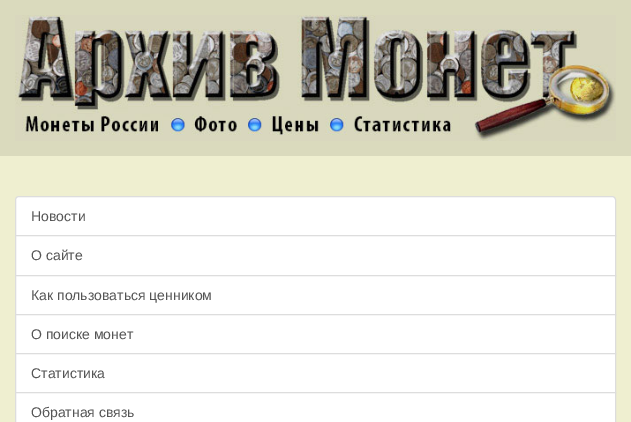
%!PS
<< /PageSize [631 422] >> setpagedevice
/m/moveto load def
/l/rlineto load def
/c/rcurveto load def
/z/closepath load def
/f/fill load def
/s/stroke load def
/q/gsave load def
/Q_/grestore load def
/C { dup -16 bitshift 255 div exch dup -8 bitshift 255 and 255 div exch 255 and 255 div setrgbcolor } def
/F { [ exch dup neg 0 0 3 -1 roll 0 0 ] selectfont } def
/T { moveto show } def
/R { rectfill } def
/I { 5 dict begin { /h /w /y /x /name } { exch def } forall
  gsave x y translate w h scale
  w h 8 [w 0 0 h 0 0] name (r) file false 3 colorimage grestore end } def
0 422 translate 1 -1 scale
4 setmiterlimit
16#EFEFD0 C
0 0 631 422 R
16#DADABD C
0 0 631 156 R
(1.rgb) 15 15 601 126 I
16#FFFFFF C
19 196.5 m 593 0 l 2 0 3.5 1.5 3.5 3.5 c 0 35.5 l -600 0 l 0 -35.5 l 0 -2 1.5 -3.5 3.5 -3.5 c z q f Q_
16#DDDDDD C
s
/LiberationSans-Regular 14 F
16#555555 C
(Новости) 31 221 T
16#FFFFFF C
15.5 235.5 m 600 0 l 0 40 l -600 0 l z q f Q_
16#DDDDDD C
s
16#555555 C
(О сайте) 31 260 T
16#FFFFFF C
15.5 275.5 m 600 0 l 0 39 l -600 0 l z q f Q_
16#DDDDDD C
s
16#555555 C
(Как пользоваться ценником) 31 300 T
16#FFFFFF C
15.5 314.5 m 600 0 l 0 39 l -600 0 l z q f Q_
16#DDDDDD C
s
16#555555 C
(О поиске монет) 31 339 T
16#FFFFFF C
15.5 353.5 m 600 0 l 0 39 l -600 0 l z q f Q_
16#DDDDDD C
s
16#555555 C
(Статистика) 31 378 T
16#FFFFFF C
15.5 392.5 m 600 0 l 0 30 l -600 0 l z q f Q_
16#DDDDDD C
s
16#555555 C
(Обратная связь) 31 417 T
showpage
